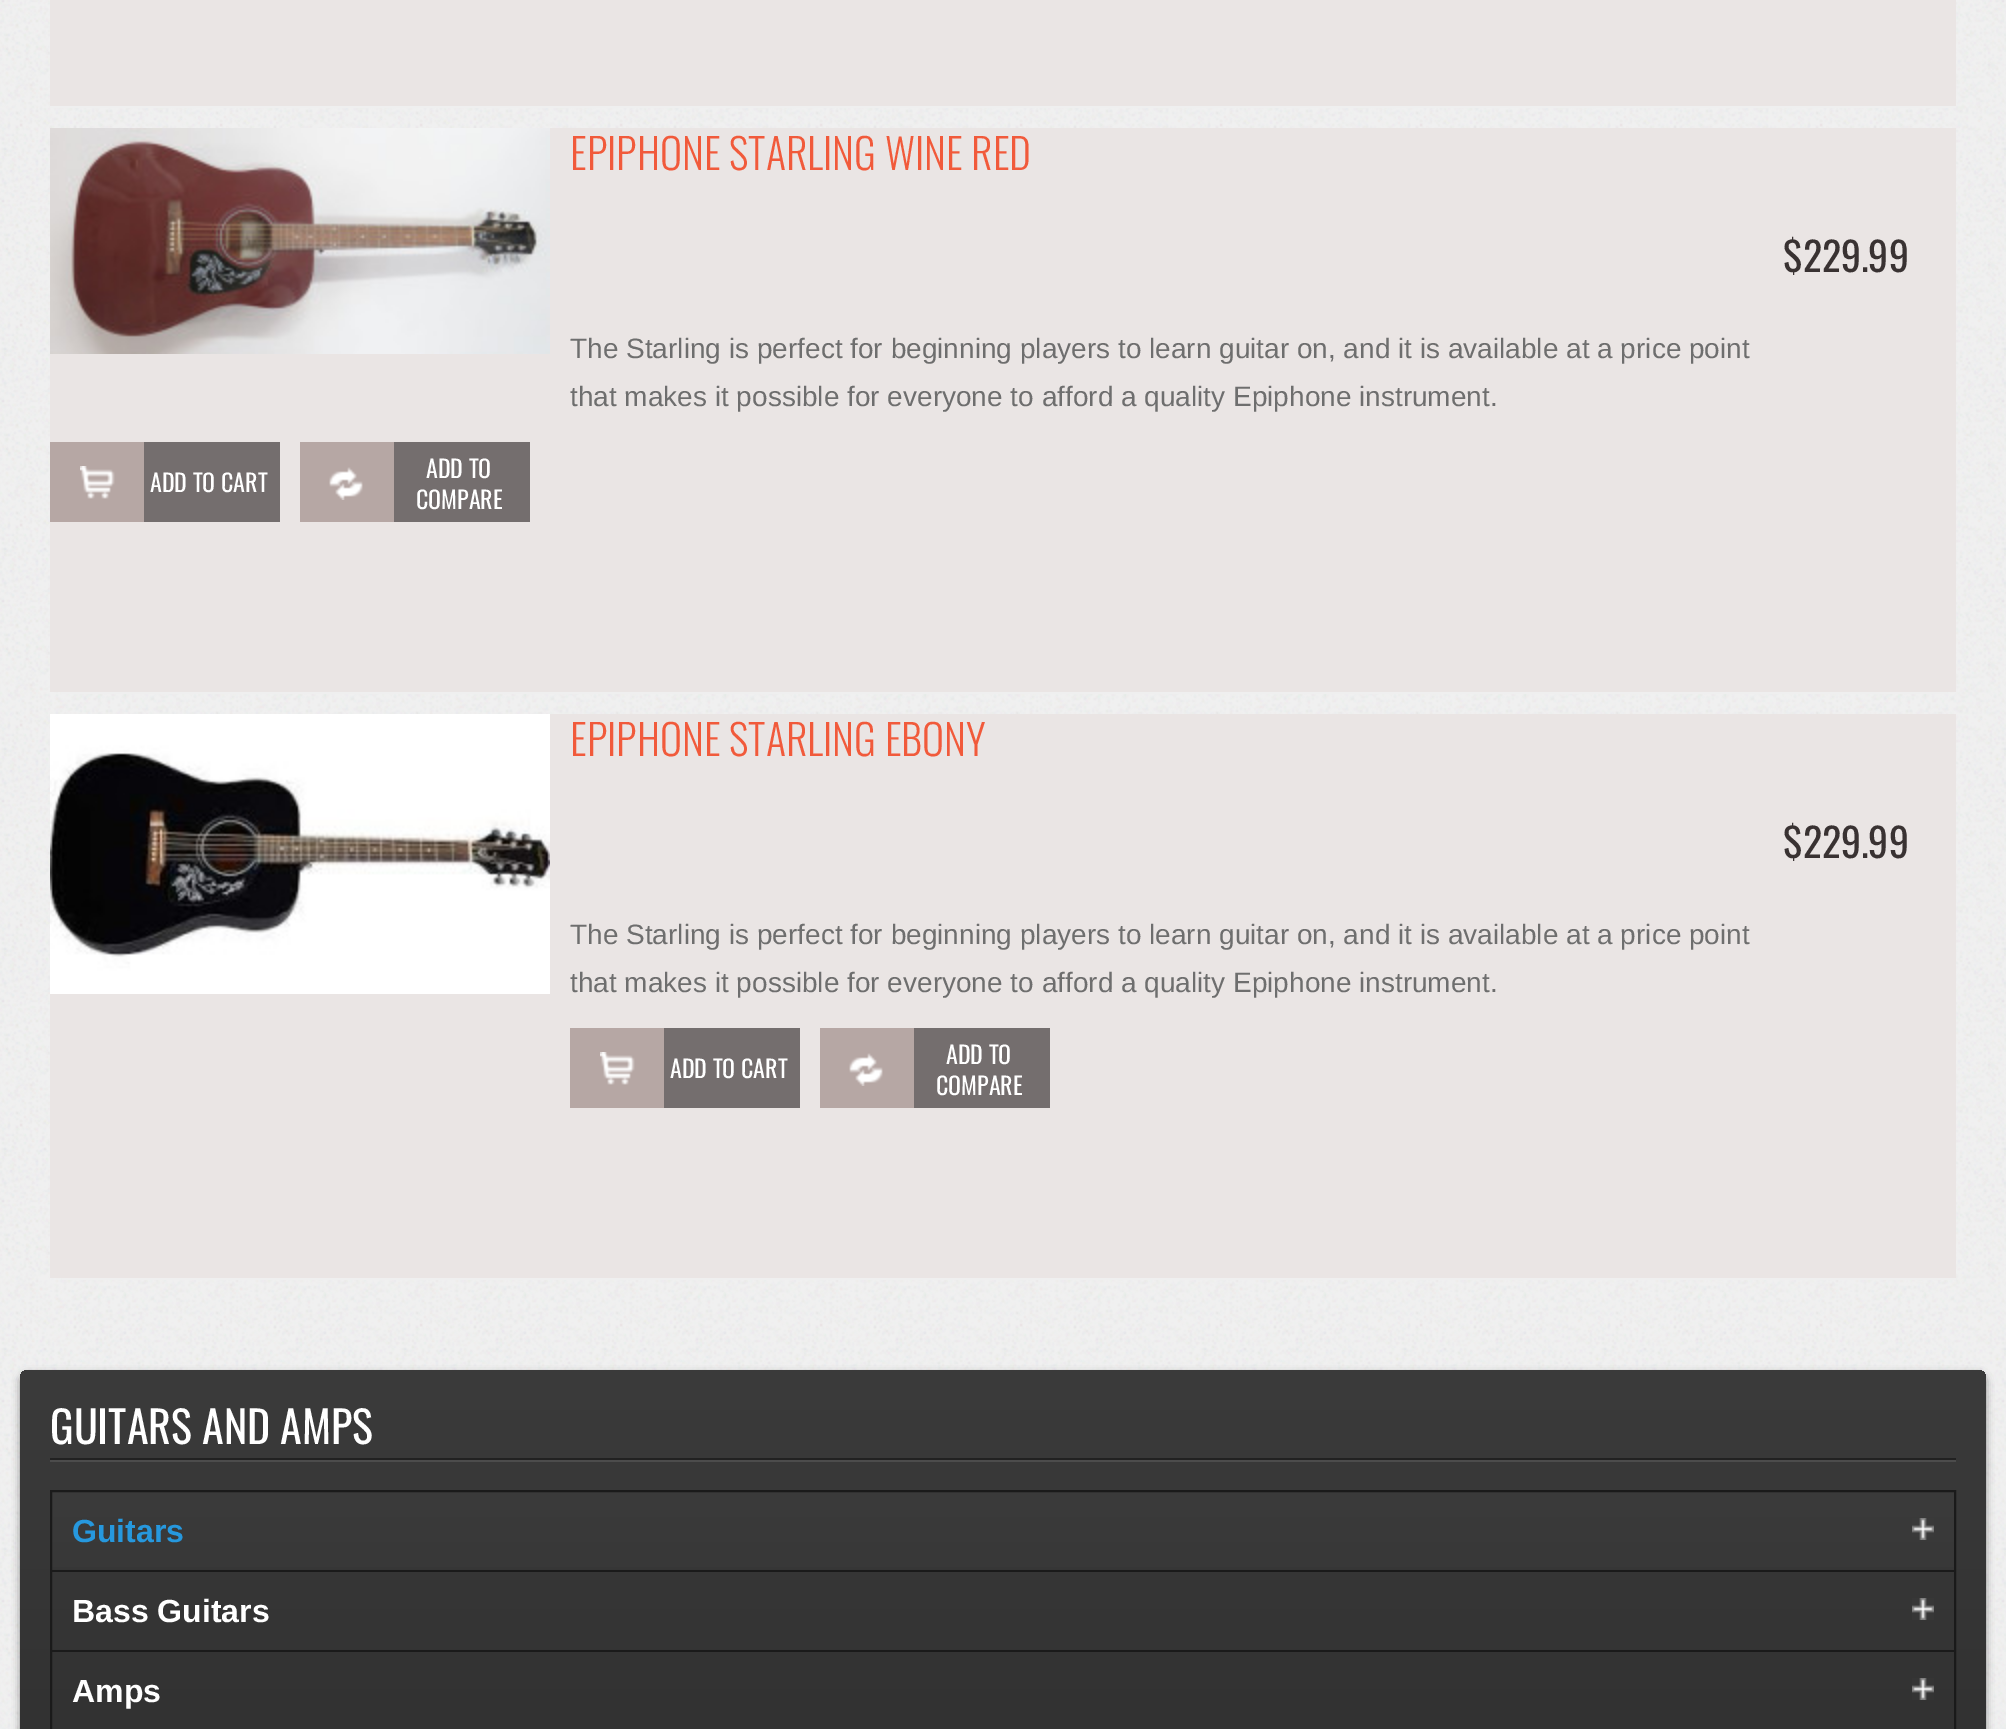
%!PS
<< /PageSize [2006 1729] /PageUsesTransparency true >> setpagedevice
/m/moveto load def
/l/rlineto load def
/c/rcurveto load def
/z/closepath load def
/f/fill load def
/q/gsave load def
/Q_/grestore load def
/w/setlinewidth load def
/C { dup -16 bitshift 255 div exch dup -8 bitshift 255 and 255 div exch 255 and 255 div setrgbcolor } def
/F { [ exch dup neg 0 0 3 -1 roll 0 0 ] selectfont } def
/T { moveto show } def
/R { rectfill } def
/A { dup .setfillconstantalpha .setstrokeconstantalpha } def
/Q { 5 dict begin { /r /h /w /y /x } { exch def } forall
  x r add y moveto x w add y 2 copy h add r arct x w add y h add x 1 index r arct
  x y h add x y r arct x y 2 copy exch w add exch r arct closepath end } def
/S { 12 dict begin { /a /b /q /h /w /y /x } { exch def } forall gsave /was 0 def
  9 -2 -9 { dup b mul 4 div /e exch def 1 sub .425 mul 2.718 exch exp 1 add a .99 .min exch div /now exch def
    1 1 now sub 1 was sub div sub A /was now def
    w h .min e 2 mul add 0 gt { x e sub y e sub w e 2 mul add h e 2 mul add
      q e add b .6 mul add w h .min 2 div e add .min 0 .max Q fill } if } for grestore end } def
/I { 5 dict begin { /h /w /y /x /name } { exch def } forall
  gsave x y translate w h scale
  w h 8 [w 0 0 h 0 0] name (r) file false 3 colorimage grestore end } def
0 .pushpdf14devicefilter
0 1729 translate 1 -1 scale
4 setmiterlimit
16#F0F0F0 C
0 0 2006 1729 R
(1.rgb) 0 0 2006 1729 I
16#EAE5E4 C
50 0 1906 106 R
16#EFEFEF C
50 106 1906 2 R
16#EAE5E4 C
50 128 1906 564 R
16#EFEFEF C
61 692 1886 2 R
(2.rgb) 50 128 500 226 I
/Oswald-Light 42 F
16#F15A3B C
(EPIPHONE STARLING WINE RED) 570 170 T
/Oswald-Regular 40 F
16#393232 C
($229.99) 1783 272 T
/LiberationSans-Regular 28 F
16#6E6E6E C
(The Starling is perfect for beginning players to learn guitar on, and it is available at a price point) 570 358 T
(that makes it possible for everyone to afford a quality Epiphone instrument.) 570 406 T
16#746E6E C
144 442 136 80 R
16#B6A7A4 C
50 442 94 80 R
(3.rgb) 80 466 35 33 I
/Oswald-Regular 24 F
16#FFFFFF C
(ADD TO CART) 150 492 T
16#746E6E C
394 442 136 80 R
16#B6A7A4 C
300 442 94 80 R
(4.rgb) 329 467 34 33 I
16#FFFFFF C
(ADD TO) 426 478 T
(COMPARE) 416 509 T
16#EAE5E4 C
50 714 1906 564 R
16#EFEFEF C
62 1278 1894 2 R
(5.rgb) 50 714 500 280 I
/Oswald-Light 42 F
16#F15A3B C
(EPIPHONE STARLING EBONY) 570 756 T
/Oswald-Regular 40 F
16#393232 C
($229.99) 1783 858 T
/LiberationSans-Regular 28 F
16#6E6E6E C
(The Starling is perfect for beginning players to learn guitar on, and it is available at a price point) 570 944 T
(that makes it possible for everyone to afford a quality Epiphone instrument.) 570 992 T
16#746E6E C
664 1028 136 80 R
16#B6A7A4 C
570 1028 94 80 R
(3.rgb) 600 1052 35 33 I
/Oswald-Regular 24 F
16#FFFFFF C
(ADD TO CART) 670 1078 T
16#746E6E C
914 1028 136 80 R
16#B6A7A4 C
820 1028 94 80 R
(4.rgb) 849 1053 34 33 I
16#FFFFFF C
(ADD TO) 946 1064 T
(COMPARE) 936 1095 T
16#000000 C
20 1374 1966 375 8 4 .4 S
16#363636 C
20 1370 1966 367 8 Q f
q
20 1370 1966 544 8 Q clip newpath
q 28 1370 m 1950 0 l 4.5 0 8 3.5 8 8 c 0 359 l -1966 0 l 0 -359 l 0 -4.5 3.5 -8 8 -8 c z clip newpath
<< /ShadingType 2 /ColorSpace /DeviceRGB /Coords [1003 1370 1003 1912] /Extend [true true] /Function << /FunctionType 2 /Domain [0 1] /C0 [.231 .231 .231] /C1 [.18 .18 .18] /N 1 >> >> shfill Q_
Q_
16#4C4C4C C
50 1460 1906 2 R
16#212121 C
50 1458 1906 2 R
/Oswald-Regular 44 F
16#FFFFFF C
(GUITARS AND AMPS) 50 1444 T
q 52 1492 m 1902 0 l 0 75 l -1902 0 l z clip newpath
<< /ShadingType 2 /ColorSpace /DeviceRGB /Coords [1003 1492 1003 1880] /Extend [true true] /Function << /FunctionType 2 /Domain [0 1] /C0 [.231 .231 .231] /C1 [.18 .18 .18] /N 1 >> >> shfill Q_
16#1A1A1A C
2 w
51 1491 1904 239 rectstroke
/LiberationSans-Bold 32 F
16#2698DE C
(Guitars) 72 1542 T
(6.rgb) 1912 1518 22 22 I
16#1A1A1A C
52 1570 1902 2 R
16#FFFFFF C
(Bass Guitars) 72 1622 T
(7.rgb) 1912 1598 22 22 I
16#1A1A1A C
52 1650 1902 2 R
16#FFFFFF C
(Amps) 72 1702 T
(8.rgb) 1912 1678 22 22 I
.poppdf14devicefilter showpage
